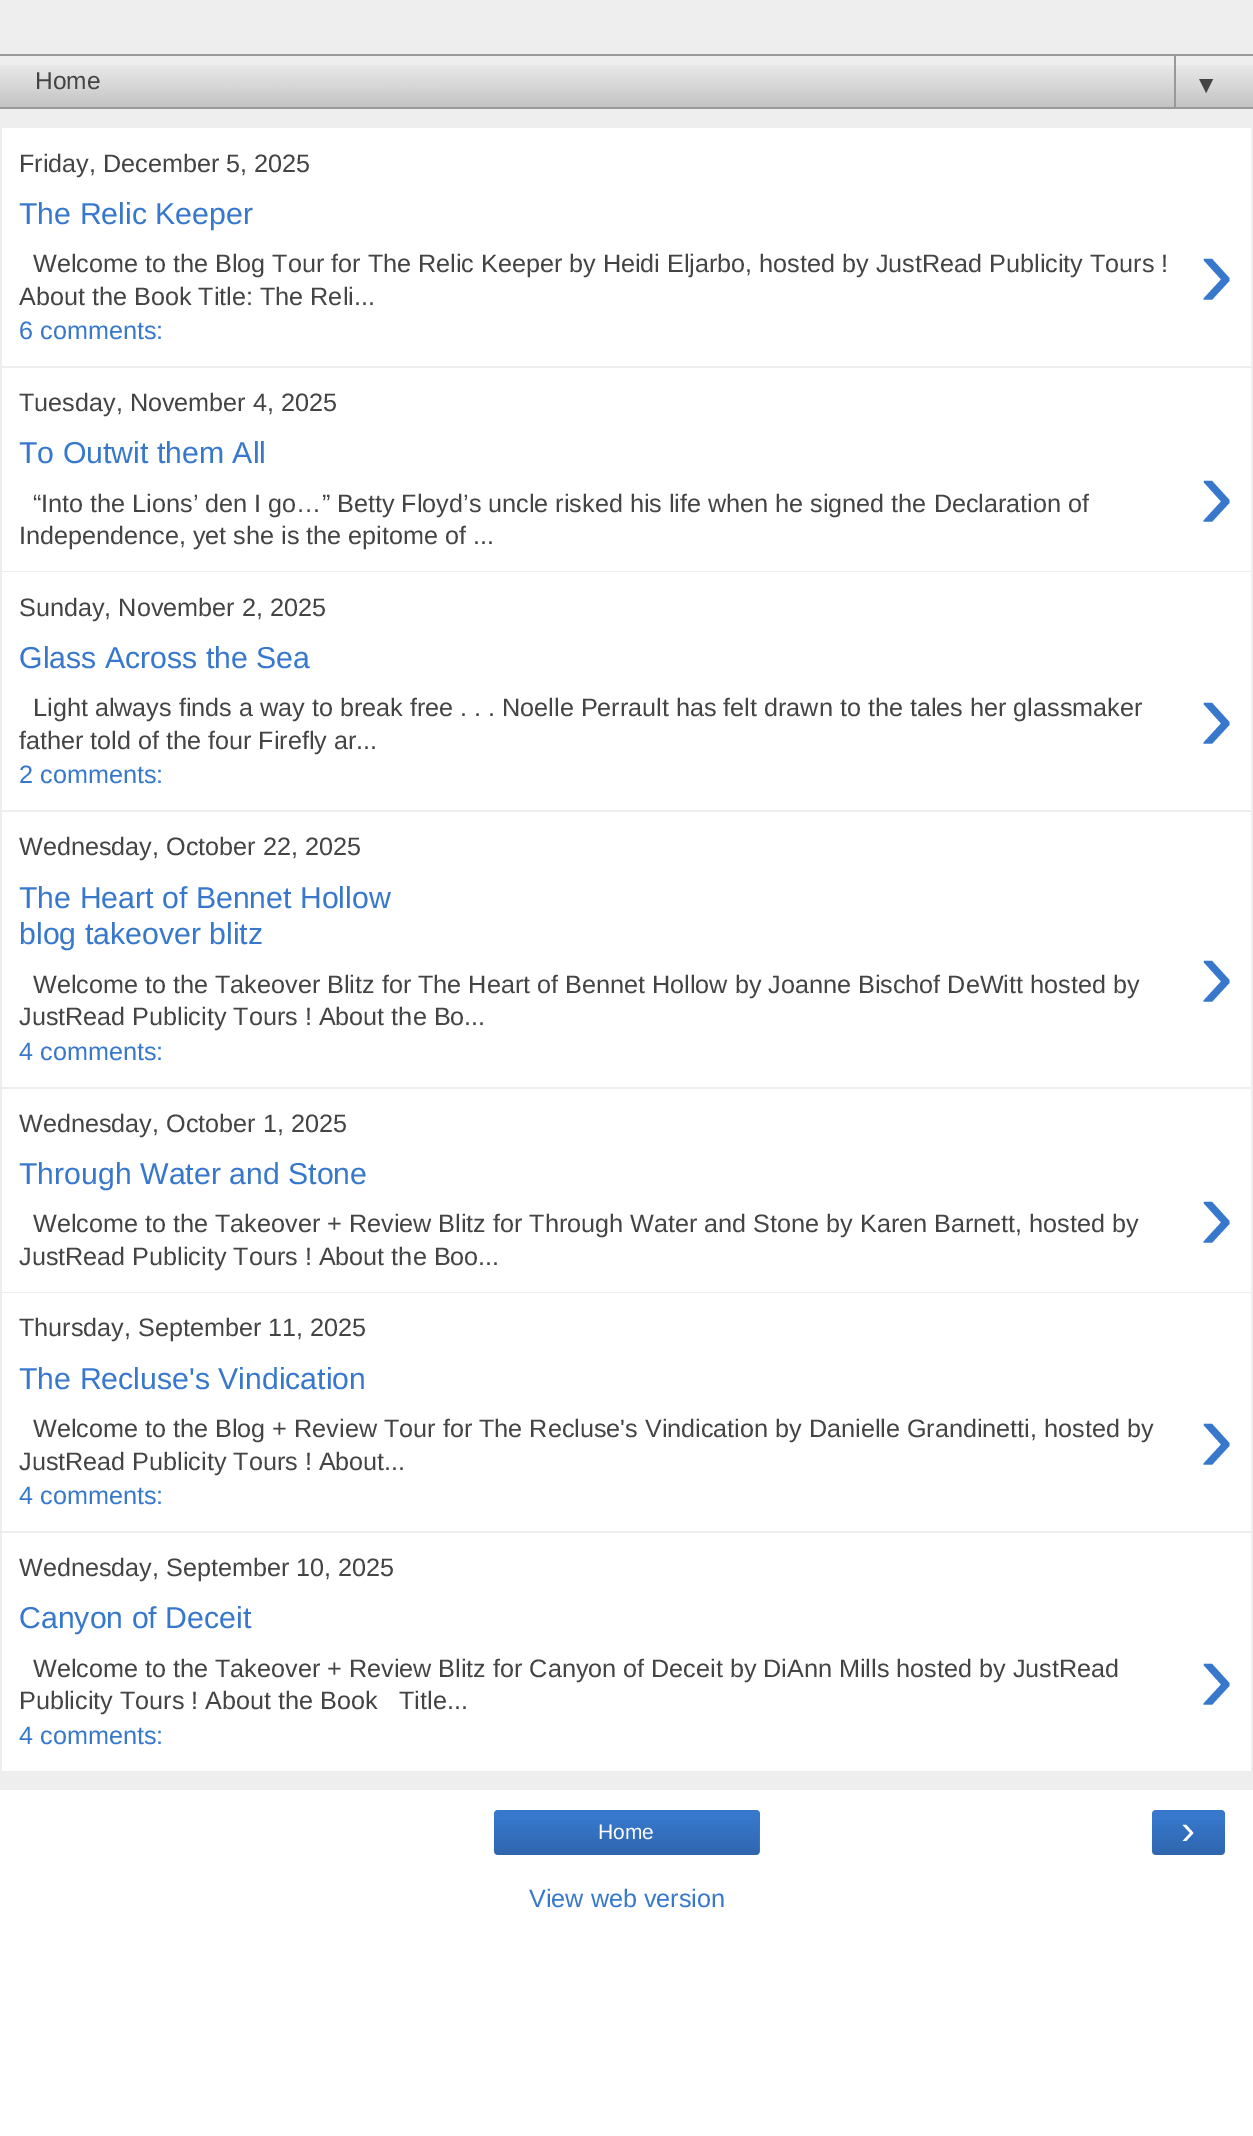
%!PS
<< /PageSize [1253 2136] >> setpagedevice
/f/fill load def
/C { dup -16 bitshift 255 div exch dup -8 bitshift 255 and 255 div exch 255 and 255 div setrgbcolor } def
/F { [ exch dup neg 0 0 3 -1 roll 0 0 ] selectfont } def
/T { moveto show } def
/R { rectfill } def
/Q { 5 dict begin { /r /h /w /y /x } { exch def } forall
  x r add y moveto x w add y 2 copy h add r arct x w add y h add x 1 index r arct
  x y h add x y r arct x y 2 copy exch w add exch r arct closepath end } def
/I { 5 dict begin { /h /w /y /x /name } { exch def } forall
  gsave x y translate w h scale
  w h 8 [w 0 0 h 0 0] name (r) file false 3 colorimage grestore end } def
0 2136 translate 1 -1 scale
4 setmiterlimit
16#EEEEEE C
0 0 1253 2136 R
(1.rgb) 0 65 1253 42 I
16#999999 C
0 54 1253 2 R
/LiberationSans-Regular 24.5 F
16#444444 C
(Home) 35 89 T
16#999999 C
1174 54 2 55 R
16#444444 C
(▼) 1194 93 T
16#999999 C
0 107 1253 2 R
16#FFFFFF C
2 128 1249 238 R
/LiberationSans-Regular 25.2 F
16#444444 C
(Friday, December 5, 2025) 19 172 T
/LiberationSans-Regular 30.25 F
16#3778CD C
(The Relic Keeper) 19 224 T
/LiberationSans-Regular 25.2 F
16#444444 C
(Welcome to the Blog Tour for The Relic Keeper) 33 272 T
(by Heidi Eljarbo, hosted by JustRead Publicity Tours !) 569 272 T
(About the Book Title: The Reli...) 19 305 T
/LiberationSans-Regular 105 F
16#3778CD C
(›) 1199 307 T
/LiberationSans-Regular 25.2 F
(6 comments:) 19 339 T
16#FFFFFF C
2 368 1249 203 R
16#444444 C
(Tuesday, November 4, 2025) 19 411 T
/LiberationSans-Regular 30.25 F
16#3778CD C
(To Outwit them All) 19 463 T
/LiberationSans-Regular 25.2 F
16#444444 C
(“Into the Lions’ den I go…” Betty Floyd’s uncle risked his life when he signed the Declaration of) 33 512 T
(Independence, yet she is the epitome of ...) 19 544 T
/LiberationSans-Regular 105 F
16#3778CD C
(›) 1199 529 T
16#FFFFFF C
2 572 1249 238 R
/LiberationSans-Regular 25.2 F
16#444444 C
(Sunday, November 2, 2025) 19 616 T
/LiberationSans-Regular 30.25 F
16#3778CD C
(Glass Across the Sea) 19 668 T
/LiberationSans-Regular 25.2 F
16#444444 C
(Light always finds a way to break free . . . Noelle Perrault has felt drawn to the tales her glassmaker) 33 716 T
(father told of the four Firefly ar...) 19 749 T
/LiberationSans-Regular 105 F
16#3778CD C
(›) 1199 751 T
/LiberationSans-Regular 25.2 F
(2 comments:) 19 783 T
16#FFFFFF C
2 812 1249 275 R
16#444444 C
(Wednesday, October 22, 2025) 19 855 T
/LiberationSans-Regular 30.25 F
16#3778CD C
(The Heart of Bennet Hollow) 19 908 T
(blog takeover blitz) 19 944 T
/LiberationSans-Regular 25.2 F
16#444444 C
(Welcome to the Takeover Blitz for The Heart of Bennet Hollow by Joanne Bischof DeWitt hosted by) 33 993 T
(JustRead Publicity Tours ! About the Bo...) 19 1025 T
/LiberationSans-Regular 105 F
16#3778CD C
(›) 1199 1009 T
/LiberationSans-Regular 25.2 F
(4 comments:) 19 1060 T
16#FFFFFF C
2 1089 1249 203 R
16#444444 C
(Wednesday, October 1, 2025) 19 1132 T
/LiberationSans-Regular 30.25 F
16#3778CD C
(Through Water and Stone) 19 1184 T
/LiberationSans-Regular 25.2 F
16#444444 C
(Welcome to the Takeover + Review Blitz for Through Water and Stone by Karen Barnett, hosted by) 33 1232 T
(JustRead Publicity Tours ! About the Boo...) 19 1265 T
/LiberationSans-Regular 105 F
16#3778CD C
(›) 1199 1250 T
16#FFFFFF C
2 1293 1249 238 R
/LiberationSans-Regular 25.2 F
16#444444 C
(Thursday, September 11, 2025) 19 1336 T
/LiberationSans-Regular 30.25 F
16#3778CD C
(The Recluse's Vindication) 19 1389 T
/LiberationSans-Regular 25.2 F
16#444444 C
(Welcome to the Blog + Review Tour for The Recluse's Vindication by Danielle Grandinetti, hosted by) 33 1437 T
(JustRead Publicity Tours ! About...) 19 1470 T
/LiberationSans-Regular 105 F
16#3778CD C
(›) 1199 1472 T
/LiberationSans-Regular 25.2 F
(4 comments:) 19 1504 T
16#FFFFFF C
2 1533 1249 238 R
16#444444 C
(Wednesday, September 10, 2025) 19 1576 T
/LiberationSans-Regular 30.25 F
16#3778CD C
(Canyon of Deceit) 19 1628 T
/LiberationSans-Regular 25.2 F
16#444444 C
(Welcome to the Takeover + Review Blitz for Canyon of Deceit by DiAnn Mills hosted by JustRead) 33 1677 T
(Publicity Tours ! About the Book) 19 1709 T
(Title...) 399 1709 T
/LiberationSans-Regular 105 F
16#3778CD C
(›) 1199 1712 T
/LiberationSans-Regular 25.2 F
(4 comments:) 19 1744 T
16#FFFFFF C
0 1790 1253 346 R
16#3778CD C
494 1810 266 45 4 Q f
(2.rgb) 493 1820 267 35 I
/LiberationSans-Regular 21 F
16#FFFFFF C
(Home) 598 1839 T
16#3778CD C
1152 1810 73 45 4 Q f
(3.rgb) 1151 1820 74 35 I
/LiberationSans-Regular 42 F
16#FFFFFF C
(›) 1181 1844 T
/LiberationSans-Regular 25.2 F
16#3778CD C
(View web version) 529 1907 T
showpage
